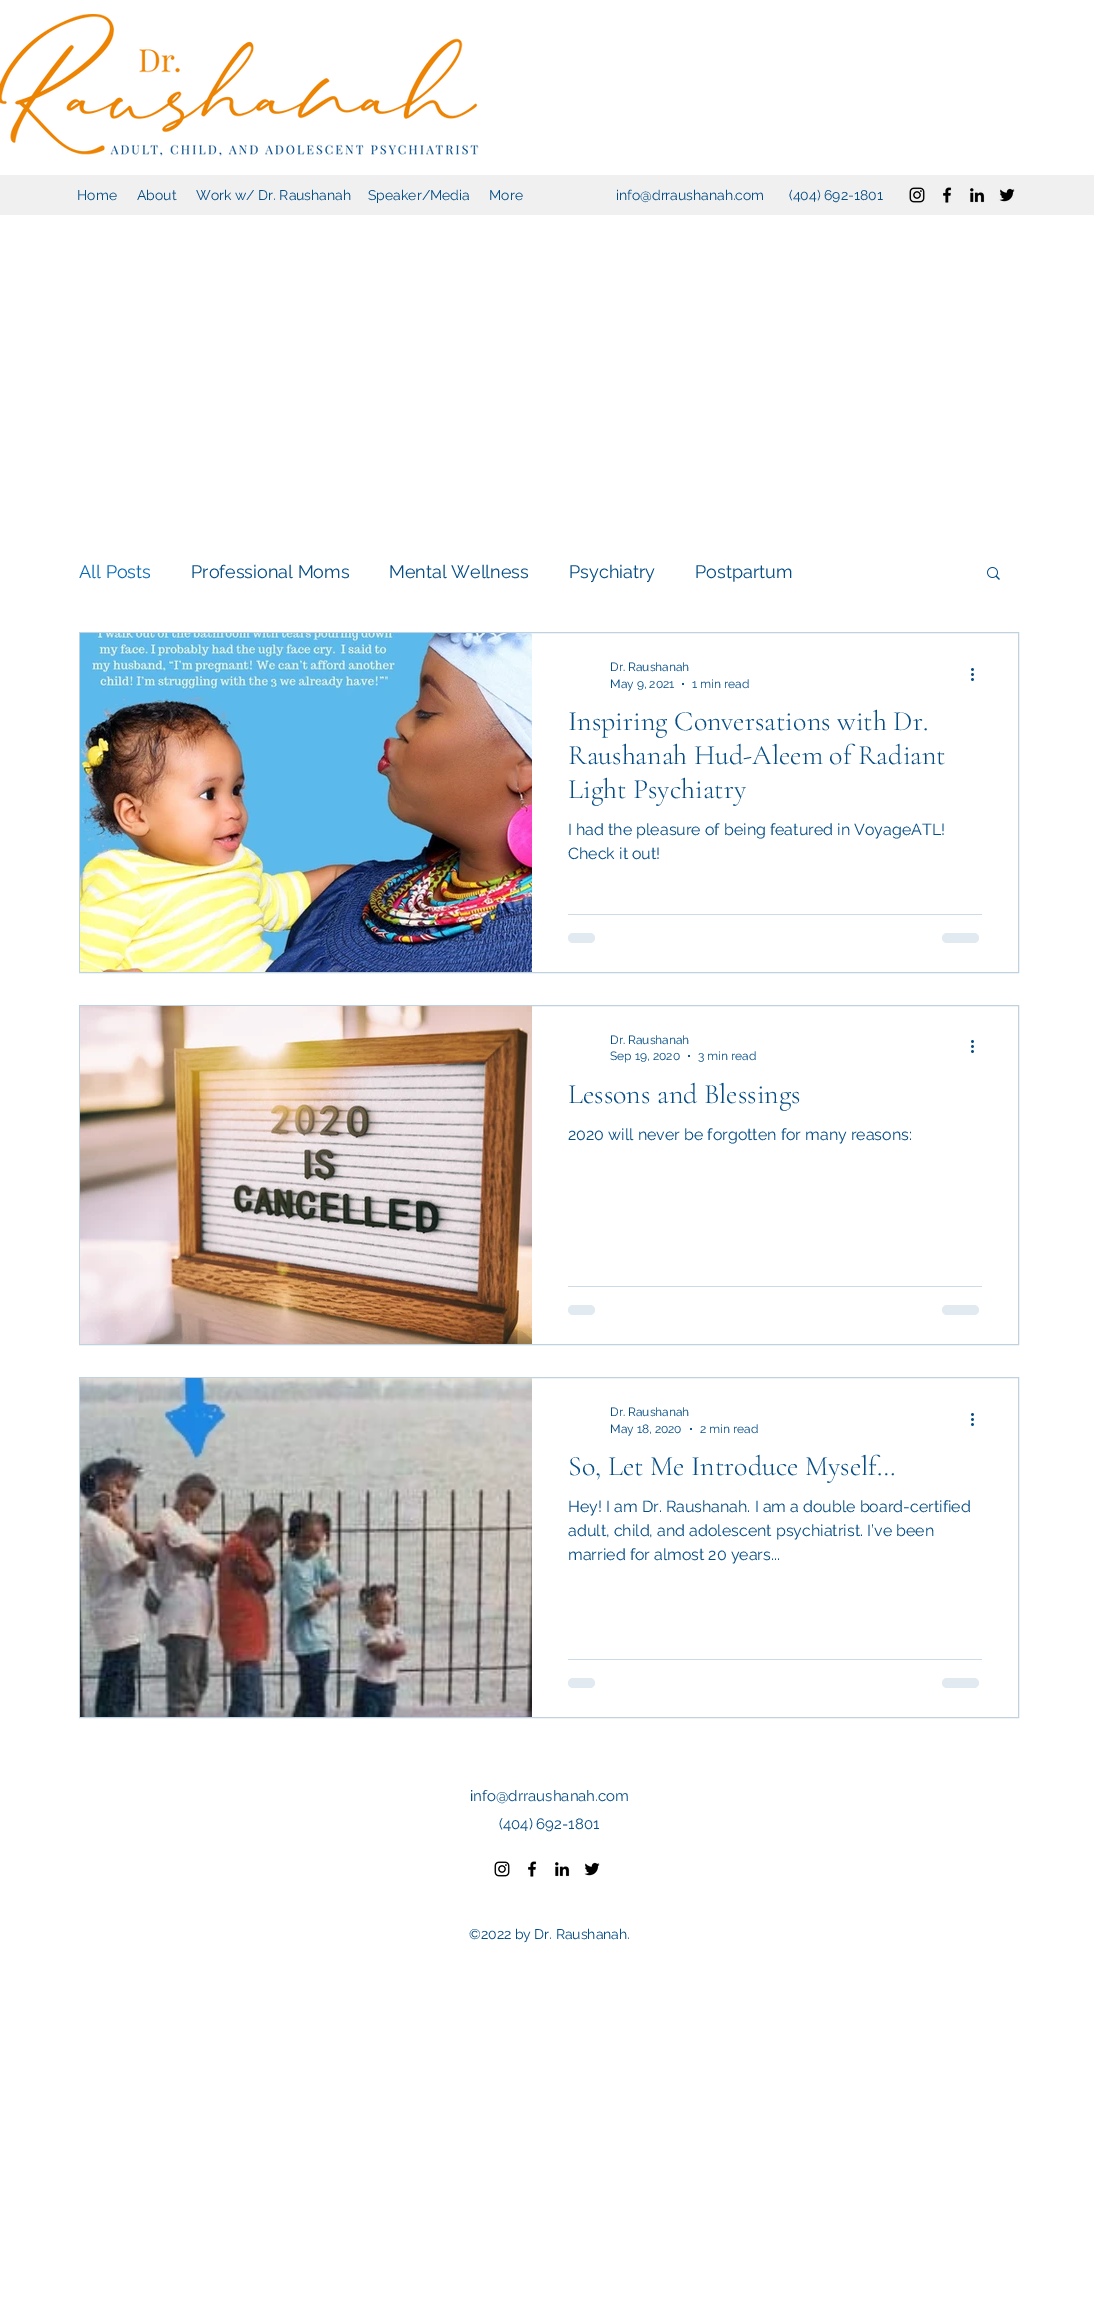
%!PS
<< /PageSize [1094 2300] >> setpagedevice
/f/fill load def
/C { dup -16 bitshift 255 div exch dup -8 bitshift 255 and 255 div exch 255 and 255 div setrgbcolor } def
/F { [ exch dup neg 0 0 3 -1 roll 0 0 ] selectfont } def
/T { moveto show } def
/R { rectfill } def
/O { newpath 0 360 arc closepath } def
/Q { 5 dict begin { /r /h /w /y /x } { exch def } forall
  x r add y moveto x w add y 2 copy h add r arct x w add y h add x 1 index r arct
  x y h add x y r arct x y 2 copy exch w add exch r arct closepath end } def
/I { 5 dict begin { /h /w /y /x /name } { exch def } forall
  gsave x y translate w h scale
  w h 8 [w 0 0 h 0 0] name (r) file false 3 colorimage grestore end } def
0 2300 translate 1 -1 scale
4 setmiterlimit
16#FFFFFF C
0 0 1094 2300 R
(1.rgb) 0 14 479 143 I
16#F0F0F0 C
0 175 1094 40 R
/Raleway-Regular 14 F
16#044C84 C
(Home) 77 200 T
(About) 137 200 T
(Work w/ Dr. Raushanah) 196 200 T
(Speaker/Media) 368 200 T
(More) 489 200 T
(info@drraushanah.com) 616 200 T
(\(404\) 692-1801) 789 200 T
(2.rgb) 909 187 16 16 I
(3.rgb) 943 187 9 16 I
(4.rgb) 970 188 15 15 I
(5.rgb) 999 188 16 14 I
/Raleway-Regular 18 F
16#0669B6 C
(All Posts) 79 578 T
16#044C84 C
(Professional Moms) 191 578 T
(Mental Wellness) 389 578 T
(Psychiatry) 569 578 T
(Postpartum) 695 578 T
(6.rgb) 987 567 13 13 I
16#C0D2E0 C
79.5 632.5 939 340 rectstroke
(7.rgb) 80 633 452 339 I
/Raleway-Regular 12 F
16#044C84 C
(Dr. Raushanah) 610 671 T
(May 9, 2021) 610 688 T
683 684 1 O f
(1 min read) 692 688 T
(8.rgb) 971 668 3 13 I
/CormorantGaramond-Light 28 F
(Inspiring Conversations with Dr.) 568 730 T
(Raushanah Hud-Aleem of Radiant) 568 764 T
(Light Psychiatry) 568 798 T
/Raleway-Regular 16 F
(I had the pleasure of being featured in VoyageATL!) 568 835 T
(Check it out!) 568 859 T
16#CDDBE6 C
568 914 414 1 R
16#E1EAF0 C
568 933 27 10 5 Q f
942 933 37 10 5 Q f
16#C0D2E0 C
79.5 1005.5 939 339 rectstroke
(9.rgb) 80 1006 452 338 I
/Raleway-Regular 12 F
16#044C84 C
(Dr. Raushanah) 610 1044 T
(Sep 19, 2020) 610 1060 T
689 1056 1 O f
(3 min read) 698 1060 T
(8.rgb) 971 1040 3 13 I
/CormorantGaramond-Light 28 F
(Lessons and Blessings) 568 1103 T
/Raleway-Regular 16 F
(2020 will never be forgotten for many reasons:) 568 1140 T
16#CDDBE6 C
568 1286 414 1 R
16#E1EAF0 C
568 1305 27 10 5 Q f
942 1305 37 10 5 Q f
16#C0D2E0 C
79.5 1377.5 939 340 rectstroke
(10.rgb) 80 1378 452 339 I
/Raleway-Regular 12 F
16#044C84 C
(Dr. Raushanah) 610 1416 T
(May 18, 2020) 610 1433 T
691 1429 1 O f
(2 min read) 700 1433 T
(8.rgb) 971 1413 3 13 I
/CormorantGaramond-Light 28 F
(So, Let Me Introduce Myself…) 568 1475 T
/Raleway-Regular 16 F
(Hey! I am Dr. Raushanah. I am a double board-certified) 568 1512 T
(adult, child, and adolescent psychiatrist. I’ve been) 568 1536 T
(married for almost 20 years...) 568 1560 T
16#CDDBE6 C
568 1659 414 1 R
16#E1EAF0 C
568 1678 27 10 5 Q f
942 1678 37 10 5 Q f
/Raleway-Regular 15 F
16#044C84 C
(info@drraushanah.com) 470 1801 T
(\(404\) 692-1801) 499 1829 T
(11.rgb) 494 1861 16 16 I
(12.rgb) 528 1861 9 16 I
(13.rgb) 555 1862 15 15 I
(14.rgb) 584 1862 16 14 I
/Raleway-Regular 14 F
(©2022 by Dr. Raushanah.) 469 1939 T
showpage
